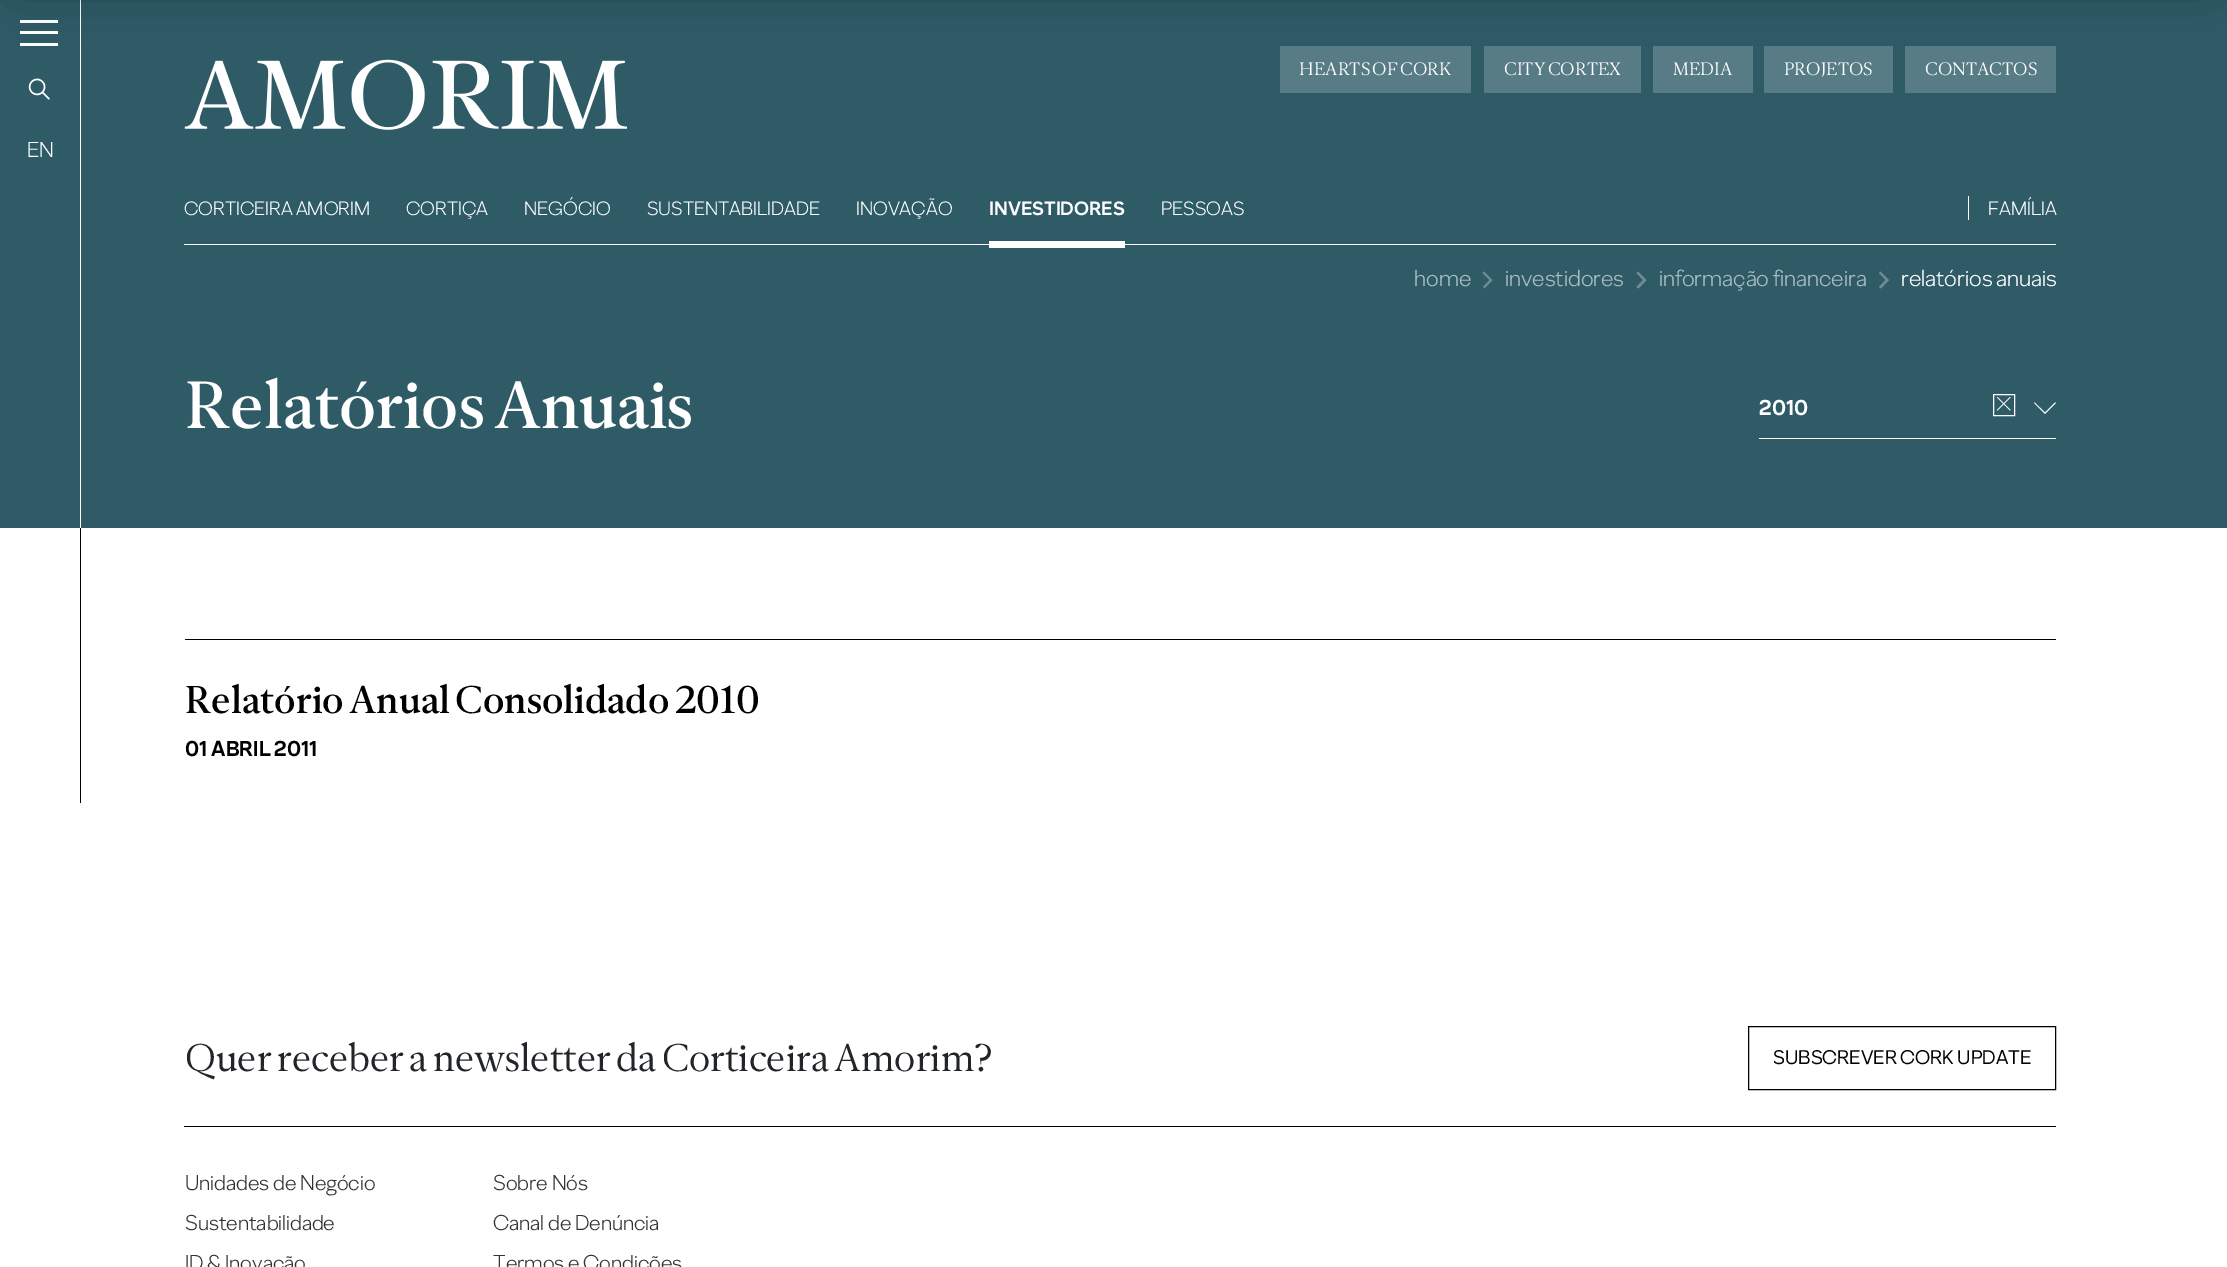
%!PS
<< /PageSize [2227 1267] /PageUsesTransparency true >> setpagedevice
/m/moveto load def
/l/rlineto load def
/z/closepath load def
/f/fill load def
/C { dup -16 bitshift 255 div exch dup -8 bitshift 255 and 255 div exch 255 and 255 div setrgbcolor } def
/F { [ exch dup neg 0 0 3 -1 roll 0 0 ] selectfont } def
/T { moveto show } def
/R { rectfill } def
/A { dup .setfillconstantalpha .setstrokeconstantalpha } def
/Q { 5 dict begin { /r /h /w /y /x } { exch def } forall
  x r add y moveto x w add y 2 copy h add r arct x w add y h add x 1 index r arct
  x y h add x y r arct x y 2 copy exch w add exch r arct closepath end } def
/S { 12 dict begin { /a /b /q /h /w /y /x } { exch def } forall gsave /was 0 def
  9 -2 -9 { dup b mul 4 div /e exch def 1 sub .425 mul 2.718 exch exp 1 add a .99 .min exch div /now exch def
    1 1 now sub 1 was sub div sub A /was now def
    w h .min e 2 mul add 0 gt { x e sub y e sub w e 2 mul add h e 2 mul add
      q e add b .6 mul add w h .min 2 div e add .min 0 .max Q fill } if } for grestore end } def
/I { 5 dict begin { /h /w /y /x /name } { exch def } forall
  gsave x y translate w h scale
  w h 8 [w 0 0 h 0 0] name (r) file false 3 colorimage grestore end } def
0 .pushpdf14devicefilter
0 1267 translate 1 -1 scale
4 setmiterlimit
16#FFFFFF C
0 0 2227 1267 R
16#2E5B66 C
0 0 2227 245 R
16#FFFFFF C
80 0 1 245 R
20 20 38 3 R
20 31 38 3 R
20 43 38 3 R
(2.rgb) 184 59 443 71 I
16#587C85 C
1280 46 191 47 R
1484 46 157 47 R
1653 46 100 47 R
1764 46 129 47 R
1905 46 151 47 R
16#000000 C
19 -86 2190 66 0 29.5 .4 S
(1.rgb) 28 78 22 22 I
/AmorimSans-Light 21.5 F
16#FFFFFF C
(EN) 27 157 T
/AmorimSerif-Regular 18 F
(HEARTS OF CORK) 1299 75 T
(CITY CORTEX) 1504 75 T
(MEDIA) 1673 75 T
(PROJETOS) 1784 75 T
(CONTACTOS) 1925 75 T
/AmorimSans-Light 19.25 F
(CORTICEIRA AMORIM) 184 215 T
(CORTIÇA) 406 215 T
(NEGÓCIO) 524 215 T
(SUSTENTABILIDADE) 647 215 T
(INOVAÇÃO) 856 215 T
/AmorimSans-Bold 19.25 F
(INVESTIDORES) 989 215 T
184 244 1872 1 R
16#2E5B66 C
0 311 2227 217 R
16#FFFFFF C
80 305 1 223 R
16#2E5B66 C
0 245 2227 66 R
16#FFFFFF C
989 241 136 7 R
/AmorimSans-Light 19.25 F
(PESSOAS) 1161 215 T
1968 196 1 24 R
(FAMÍLIA) 1988 215 T
80 245 1 66 R
/AmorimSans-Light 23.25 F
16#ABBDC2 C
(home) 1414 286 T
16#6D8C94 C
1489.5 280 m -7 -7 l 1.5 -1.5 l 8.5 8.5 l -8 8.5 l -1.5 -1.5 l z eofill
16#ABBDC2 C
(investidores) 1505 286 T
16#6D8C94 C
1643 280 m -6.5 -7 l 1.5 -1.5 l 8.5 8.5 l -8 8.5 l -2 -1.5 l z eofill
16#ABBDC2 C
(informação financeira) 1659 286 T
16#6D8C94 C
1885.5 280 m -6.5 -7 l 1.5 -1.5 l 8.5 8.5 l -8 8.5 l -2 -1.5 l z eofill
16#FFFFFF C
(relatórios anuais) 1901 286 T
/AmorimSerif-Medium 66.5 F
(Relatórios Anuais) 185 428 T
1759 438 297 1 R
/AmorimSans-Bold 21.5 F
(2010) 1759 415 T
2045 412.5 m 10 -10 l 1 .5 l -11 11 l -11 -11 l .5 -.5 l z f
1993.5 394.5 21 21 rectstroke
(3.rgb) 1996 396 15 15 I
16#000000 C
80 528 1 275 R
185 639 1871 1 R
/AmorimSerif-Medium 38.6 F
(Relatório Anual Consolidado 2010) 185 713 T
/AmorimSans-Bold 21.5 F
(01 ABRIL 2011) 185 756 T
/AmorimSerif-Regular 38.6 F
16#212529 C
(Quer receber a newsletter da Corticeira Amorim?) 185 1071 T
16#000000 C
1748.5 1026.5 307 63 rectstroke
/AmorimSans-Regular 19.75 F
(SUBSCREVER CORK UPDATE) 1773 1064 T
184 1126 1872 1 R
/AmorimSans-Light 21.5 F
16#333333 C
(Unidades de Negócio) 185 1190 T
(Sustentabilidade) 185 1230 T
(ID & Inovação) 185 1270 T
(Sobre Nós) 493 1190 T
(Canal de Denúncia) 493 1230 T
(Termos e Condições) 493 1270 T
.poppdf14devicefilter showpage
